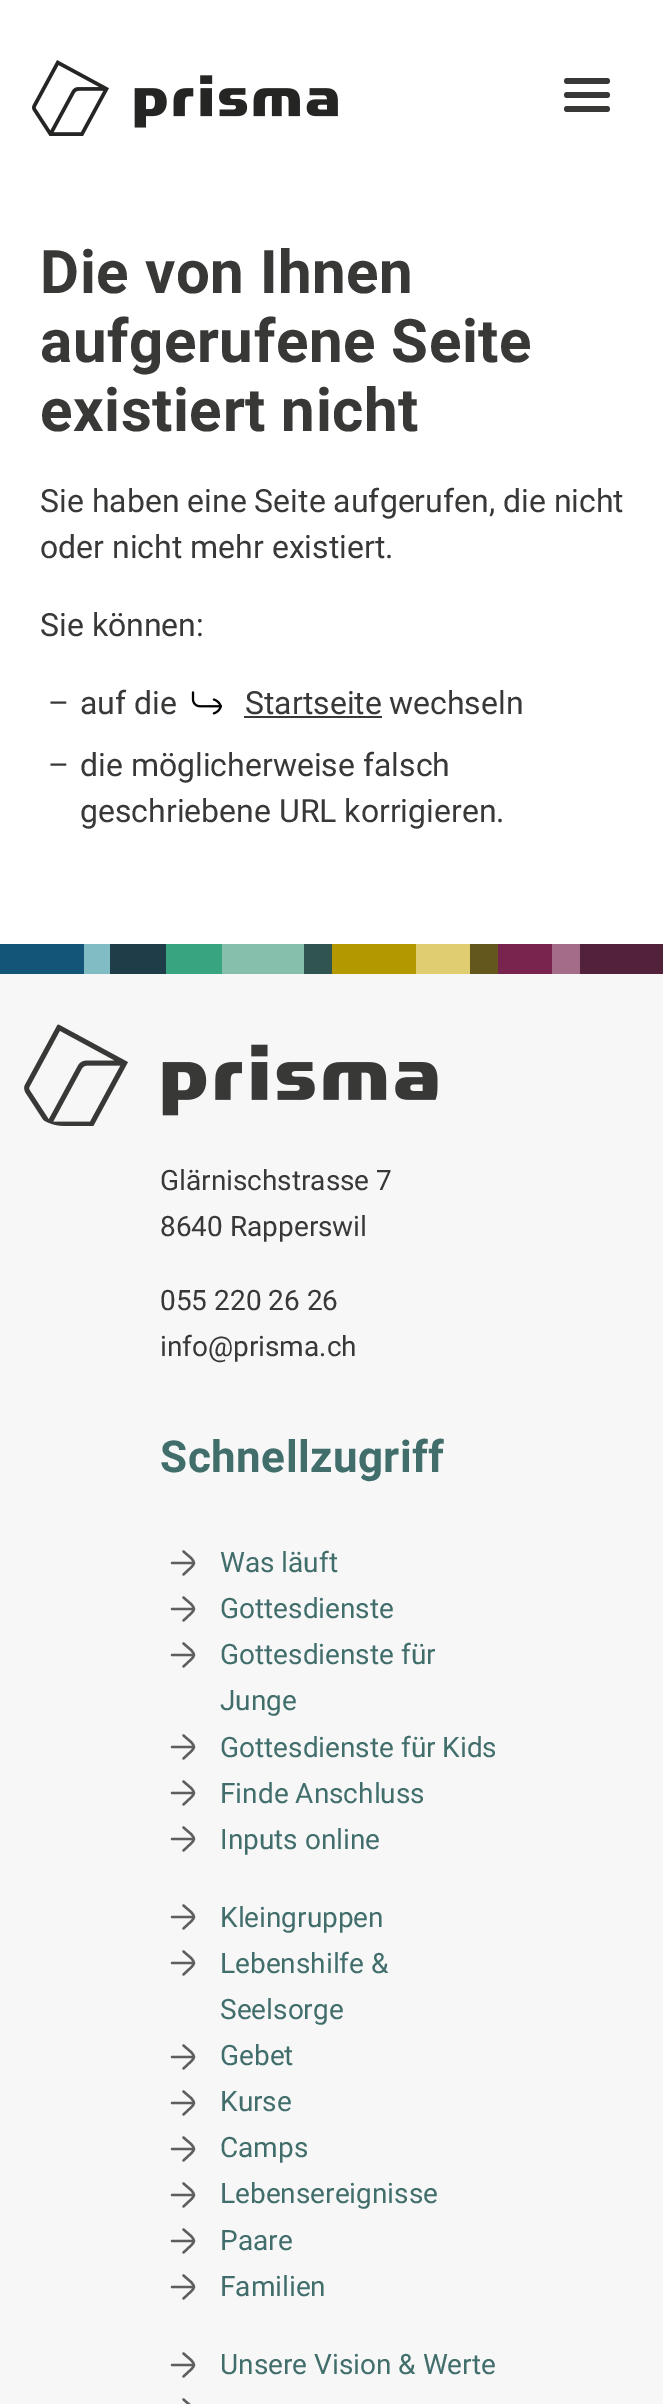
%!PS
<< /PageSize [663 2404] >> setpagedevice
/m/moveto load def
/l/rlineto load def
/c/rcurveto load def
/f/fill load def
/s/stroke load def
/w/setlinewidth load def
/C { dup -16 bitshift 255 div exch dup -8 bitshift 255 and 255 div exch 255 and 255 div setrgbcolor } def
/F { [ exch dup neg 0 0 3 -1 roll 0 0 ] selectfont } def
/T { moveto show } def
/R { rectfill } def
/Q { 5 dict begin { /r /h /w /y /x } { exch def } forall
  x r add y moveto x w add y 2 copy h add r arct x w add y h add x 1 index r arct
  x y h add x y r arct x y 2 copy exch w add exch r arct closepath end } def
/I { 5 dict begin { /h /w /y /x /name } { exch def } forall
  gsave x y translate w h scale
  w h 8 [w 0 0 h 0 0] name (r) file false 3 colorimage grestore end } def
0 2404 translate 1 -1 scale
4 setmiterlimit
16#FFFFFF C
0 0 663 2404 R
(1.rgb) 32 60 306 76 I
16#383937 C
564 78 46 6 3 Q f
564 92 46 6 3 Q f
564 106 46 6 3 Q f
/Roboto-Bold 60 F
40 293 m .6 0 (Die von Ihnen) ashow
40 362 m .6 0 (aufgerufene Seite) ashow
40 431 m .6 0 (existiert nicht) ashow
/Roboto-Regular 32 F
(Sie haben eine Seite aufgerufen, die nicht) 40 512 T
(oder nicht mehr existiert.) 40 558 T
(Sie können:) 40 636 T
(–) 48 714 T
(auf die) 80 714 T
(2.rgb) 191 691 31 24 I
(Startseite) 245 714 T
244 716 138 2 R
(wechseln) 389 714 T
(–) 48 776 T
(die möglicherweise falsch) 80 776 T
(geschriebene URL korrigieren.) 80 822 T
16#F7F7F7 C
0 974 663 1430 R
16#125578 C
0 944 84 30 R
16#81BBC3 C
84 944 26 30 R
16#1F3D48 C
110 944 56 30 R
16#39A580 C
166 944 56 30 R
16#86BFAC C
222 944 82 30 R
16#305550 C
304 944 28 30 R
16#B39800 C
332 944 84 30 R
16#E0CD70 C
416 944 54 30 R
16#63571B C
470 944 28 30 R
16#78244E C
498 944 54 30 R
16#A56C89 C
552 944 28 30 R
16#51223A C
580 944 83 30 R
(3.rgb) 24 1024 414 102 I
/Roboto-Regular 28 F
16#383937 C
(Glärnischstrasse 7) 160 1190 T
(8640 Rapperswil) 160 1236 T
(055 220 26 26) 160 1310 T
(info@prisma.ch) 160 1356 T
/Roboto-Bold 44 F
16#416E6B C
160 1472 m .5 0 (Schnellzugriff) ashow
16#5E5E5E C
2.3 w
1 setlinecap
1 setlinejoin
172 1563 m 21.5 0 l 183.5 1574.5 m 7.5 -7 l 4 -4 4 -5 0 -9.5 c -7.5 -6.5 l s
/Roboto-Regular 28 F
16#416E6B C
(Was läuft) 220 1572 T
16#5E5E5E C
172 1609 m 21.5 0 l 183.5 1620.5 m 7.5 -7 l 4 -4 4 -5 0 -9.5 c -7.5 -6.5 l s
16#416E6B C
(Gottesdienste) 220 1618 T
16#5E5E5E C
172 1655 m 21.5 0 l 183.5 1666.5 m 7.5 -7 l 4 -4 4 -5 0 -9.5 c -7.5 -6.5 l s
16#416E6B C
(Gottesdienste für) 220 1664 T
(Junge) 220 1710 T
16#5E5E5E C
172 1747 m 21.5 0 l 183.5 1758.5 m 7.5 -7 l 4 -4 4 -5 0 -9.5 c -7.5 -6.5 l s
16#416E6B C
(Gottesdienste für Kids) 220 1757 T
16#5E5E5E C
172 1793 m 21.5 0 l 183.5 1804.5 m 7.5 -7 l 4 -4 4 -5 0 -9.5 c -7.5 -6.5 l s
16#416E6B C
(Finde Anschluss) 220 1803 T
16#5E5E5E C
172 1839 m 21.5 0 l 183.5 1850.5 m 7.5 -7 l 4 -4 4 -5 0 -9.5 c -7.5 -6.5 l s
16#416E6B C
(Inputs online) 220 1849 T
16#5E5E5E C
172 1917 m 21.5 0 l 183.5 1928.5 m 7.5 -7 l 4 -4 4 -5 0 -9.5 c -7.5 -6.5 l s
16#416E6B C
(Kleingruppen) 220 1927 T
16#5E5E5E C
172 1963 m 21.5 0 l 183.5 1974.5 m 7.5 -7 l 4 -4 4 -5 0 -9.5 c -7.5 -6.5 l s
16#416E6B C
(Lebenshilfe &) 220 1973 T
(Seelsorge) 220 2019 T
16#5E5E5E C
172 2057 m 21.5 0 l 183.5 2068.5 m 7.5 -7 l 4 -4 4 -5 0 -9.5 c -7.5 -6.5 l s
16#416E6B C
(Gebet) 220 2065 T
16#5E5E5E C
172 2103 m 21.5 0 l 183.5 2114.5 m 7.5 -7 l 4 -4 4 -5 0 -9.5 c -7.5 -6.5 l s
16#416E6B C
(Kurse) 220 2111 T
16#5E5E5E C
172 2149 m 21.5 0 l 183.5 2160.5 m 7.5 -7 l 4 -4 4 -5 0 -9.5 c -7.5 -6.5 l s
16#416E6B C
(Camps) 220 2157 T
16#5E5E5E C
172 2195 m 21.5 0 l 183.5 2206.5 m 7.5 -7 l 4 -4 4 -5 0 -9.5 c -7.5 -6.5 l s
16#416E6B C
(Lebensereignisse) 220 2203 T
16#5E5E5E C
172 2241 m 21.5 0 l 183.5 2252.5 m 7.5 -7 l 4 -4 4 -5 0 -9.5 c -7.5 -6.5 l s
16#416E6B C
(Paare) 220 2250 T
16#5E5E5E C
172 2287 m 21.5 0 l 183.5 2298.5 m 7.5 -7 l 4 -4 4 -5 0 -9.5 c -7.5 -6.5 l s
16#416E6B C
(Familien) 220 2296 T
16#5E5E5E C
172 2365 m 21.5 0 l 183.5 2376.5 m 7.5 -7 l 4 -4 4 -5 0 -9.5 c -7.5 -6.5 l 183.5 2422.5 m 7.5 -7 l 4 -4 4 -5 0 -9.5 c -7.5 -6.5 l s
16#416E6B C
(Unsere Vision & Werte) 220 2374 T
showpage
